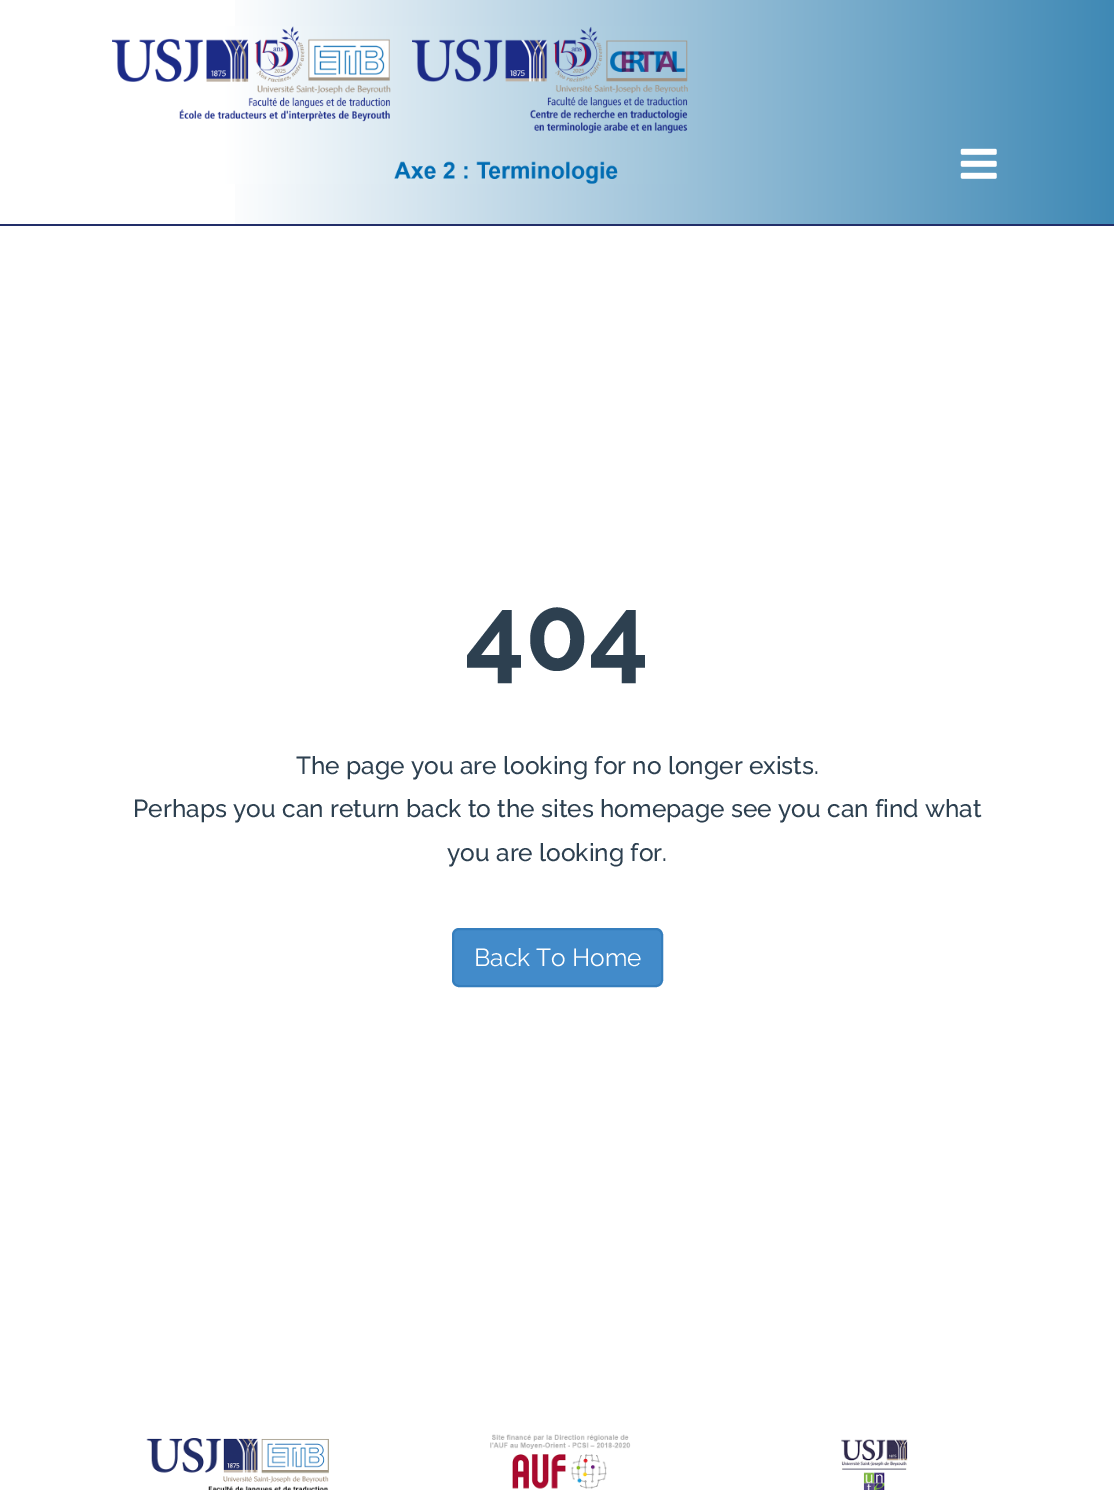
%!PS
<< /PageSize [1114 1490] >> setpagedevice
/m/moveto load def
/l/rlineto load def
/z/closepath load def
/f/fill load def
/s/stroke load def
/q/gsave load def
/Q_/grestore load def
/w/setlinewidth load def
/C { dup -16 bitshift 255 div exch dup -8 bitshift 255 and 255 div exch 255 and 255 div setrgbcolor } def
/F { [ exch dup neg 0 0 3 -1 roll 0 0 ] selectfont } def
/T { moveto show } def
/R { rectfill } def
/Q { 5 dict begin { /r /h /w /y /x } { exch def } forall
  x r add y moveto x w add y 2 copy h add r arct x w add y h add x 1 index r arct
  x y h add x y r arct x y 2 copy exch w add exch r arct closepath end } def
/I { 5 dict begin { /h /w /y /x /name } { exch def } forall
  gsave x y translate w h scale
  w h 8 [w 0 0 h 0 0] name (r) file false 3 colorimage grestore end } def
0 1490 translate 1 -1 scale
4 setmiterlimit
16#FFFFFF C
0 0 1114 1490 R
q 235 0 m 879 0 l 0 224 l -879 0 l z clip newpath
<< /ShadingType 2 /ColorSpace /DeviceRGB /Coords [0 112 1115 112] /Extend [true true] /Function << /FunctionType 3 /Domain [0 1] /Functions [<< /FunctionType 2 /Domain [0 1] /C0 [1 1 1] /C1 [1 1 1] /N 1 >> << /FunctionType 2 /Domain [0 1] /C0 [1 1 1] /C1 [.247 .537 .71] /N 1 >>] /Bounds [.2] /Encode [0 1 0 1] >> >> shfill Q_
(1.rgb) 112 26 576 158 I
16#222E69 C
0 224 1114 2 R
(2.rgb) 960 148 37 31 I
/Raleway-Bold 105 F
16#2D4050 C
(404) 465 670 T
/Raleway-Medium 24.5 F
(The page you are looking for no longer exists.) 296 774 T
(Perhaps you can return back to the sites homepage see you can find what) 133 817 T
(you are looking for.) 447 861 T
16#428BCA C
453 929 209 57 6 Q q f Q_
16#357EBD C
2 w
s
/Raleway-Regular 24.5 F
16#FFFFFF C
(Back To Home) 474 966 T
(3.rgb) 146 1438 183 52 I
(4.rgb) 490 1434 141 55 I
(5.rgb) 841 1439 67 51 I
showpage
